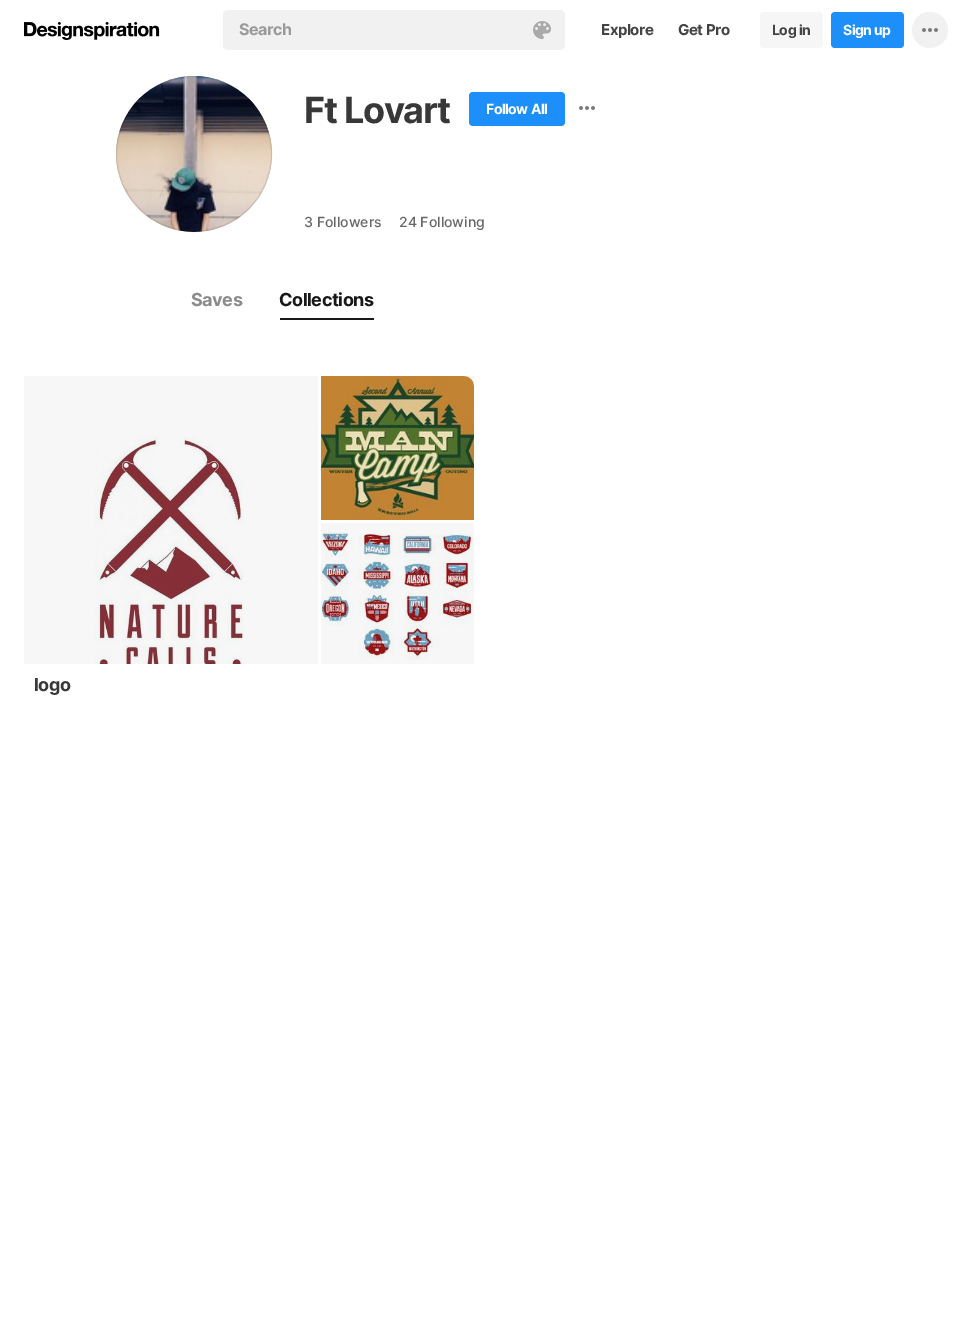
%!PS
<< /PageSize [972 1339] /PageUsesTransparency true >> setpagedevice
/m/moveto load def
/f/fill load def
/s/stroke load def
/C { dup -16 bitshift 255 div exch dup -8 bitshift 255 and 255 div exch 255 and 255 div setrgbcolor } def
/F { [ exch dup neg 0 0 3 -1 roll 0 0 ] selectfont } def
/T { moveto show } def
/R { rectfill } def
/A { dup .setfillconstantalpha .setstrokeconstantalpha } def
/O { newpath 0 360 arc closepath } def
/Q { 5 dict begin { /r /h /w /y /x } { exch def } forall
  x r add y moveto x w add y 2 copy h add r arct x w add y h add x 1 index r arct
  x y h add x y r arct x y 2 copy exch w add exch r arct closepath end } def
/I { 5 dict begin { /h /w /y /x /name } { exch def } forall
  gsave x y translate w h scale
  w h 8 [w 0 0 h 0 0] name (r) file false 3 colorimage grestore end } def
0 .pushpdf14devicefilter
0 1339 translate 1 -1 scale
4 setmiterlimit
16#FFFFFF C
0 0 972 1339 R
(1.rgb) 24 22 136 18 I
16#F1F1F1 C
223 10 342 40 5 Q f
/Inter-Bold 16 F
16#9A9A9A C
239 35 m -.5 0 (Search) ashow
(2.rgb) 533 21 18 18 I
/Inter-Bold 15 F
16#444444 C
601 35 m -.5 0 (Explore) ashow
678 35 m -.5 0 (Get Pro) ashow
16#F6F6F6 C
760 12 63 36 4 Q f
/Inter-Bold 14 F
16#444444 C
772 35 m -.5 0 (Log in) ashow
16#1D8FFB C
831 12 73 36 4 Q f
16#FFFFFF C
843 35 m -.5 0 (Sign up) ashow
16#F1F1F1 C
930 30 18 O f
(3.rgb) 922 28 16 4 I
16#CFC1B5 C
194 154 78 O f
(4.rgb) 116 76 156 156 I
0.1 A
16#000000 C
194 154 77.5 O s
/Inter-Bold 36 F
1 A
16#383838 C
304 123 m -1.25 0 (Ft Lovart) ashow
16#1D8FFB C
469 92 96 34 4 Q f
/Inter-Bold 14 F
16#FFFFFF C
486 114 m -.5 0 (Follow All) ashow
(5.rgb) 579 106 16 4 I
/Inter-Medium 14 F
16#676767 C
(3 Followers) 304 227 T
(24 Following) 399 227 T
/Inter-Bold 18 F
16#8C8C8C C
191 306 m -.5 0 (Saves) ashow
16#181818 C
279 306 m -.5 0 (Collections) ashow
280 318 94 2 R
(6.rgb) 94 436 150 228 I
0.03 A
16#000000 C
24 376 294 288 R
1 A
(7.rgb) 321 376 153 144 I
0.03 A
321 376 153 144 R
1 A
(8.rgb) 321 523 153 137 I
0.03 A
321 523 153 141 R
1 A
16#383838 C
34 691 m -.5 0 (logo) ashow
.poppdf14devicefilter showpage
